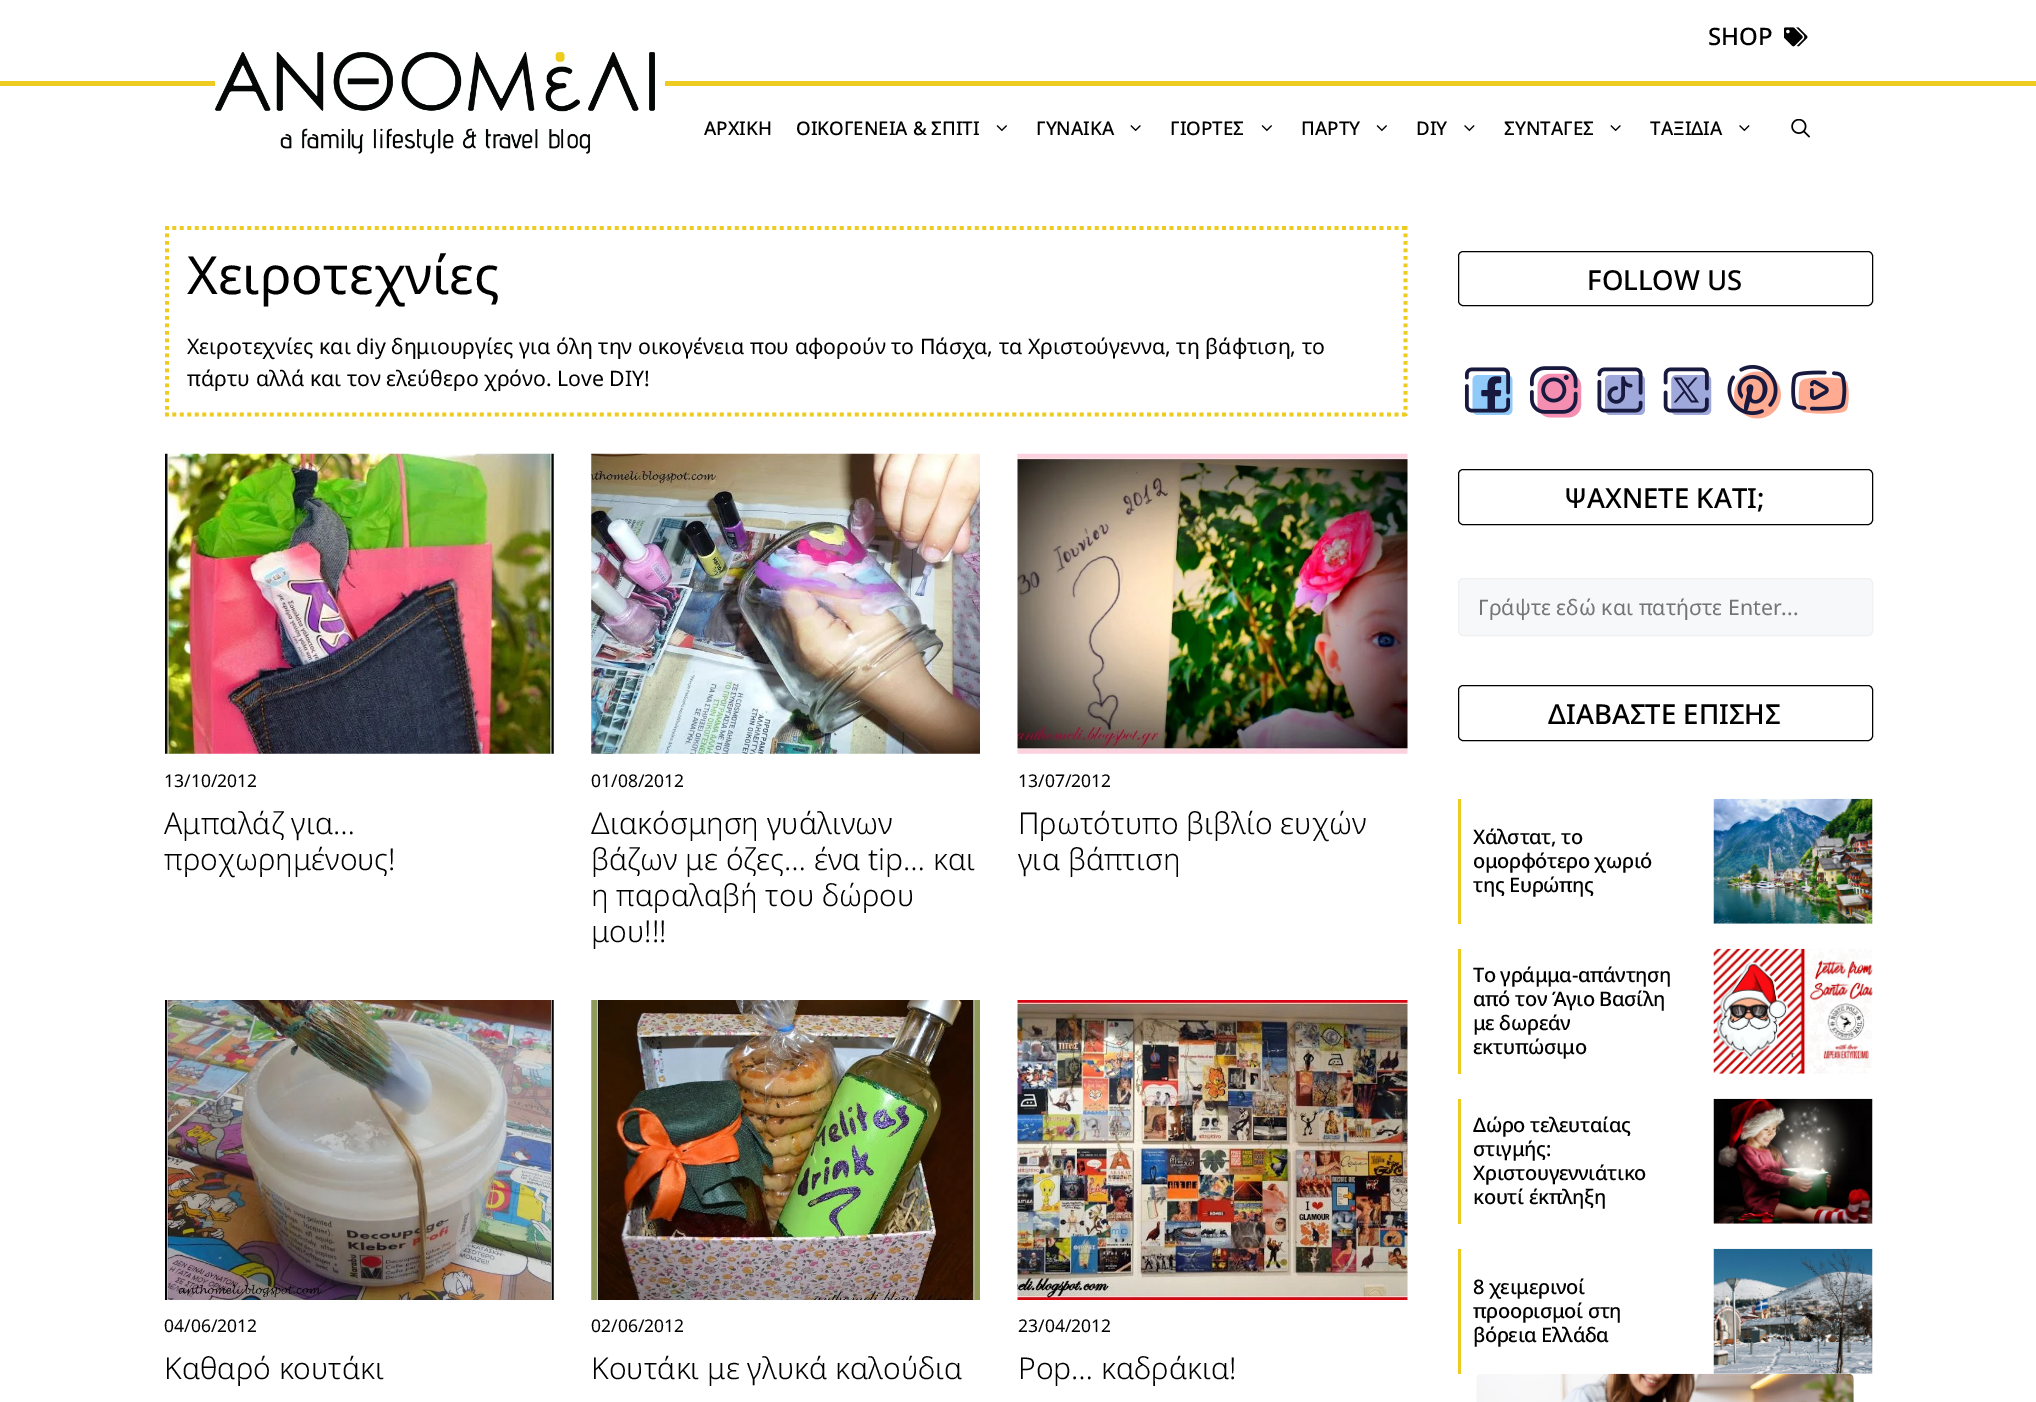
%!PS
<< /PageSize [2036 1402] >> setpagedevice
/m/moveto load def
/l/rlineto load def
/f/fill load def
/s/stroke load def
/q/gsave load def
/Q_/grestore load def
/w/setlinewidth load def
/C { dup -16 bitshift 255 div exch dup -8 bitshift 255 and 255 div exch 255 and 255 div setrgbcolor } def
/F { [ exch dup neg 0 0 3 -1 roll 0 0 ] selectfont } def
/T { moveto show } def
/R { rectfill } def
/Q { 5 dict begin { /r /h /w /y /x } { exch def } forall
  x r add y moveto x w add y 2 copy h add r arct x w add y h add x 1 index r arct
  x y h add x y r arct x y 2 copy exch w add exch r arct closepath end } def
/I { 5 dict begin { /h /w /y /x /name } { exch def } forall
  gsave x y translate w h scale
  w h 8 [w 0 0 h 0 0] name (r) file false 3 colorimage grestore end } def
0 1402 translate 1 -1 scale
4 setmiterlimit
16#FFFFFF C
0 0 2036 1402 R
/NotoSans-Medium 24 F
16#000000 C
(SHOP) 1708 45 T
(1.rgb) 1784 27 24 20 I
16#EDCB21 C
0 81 2036 5 R
16#FFFFFF C
215 81 450 5 R
(2.rgb) 215 52 440 102 I
/NotoSans-Medium 18.75 F
16#000000 C
(ΑΡΧΙΚΗ) 704 135 T
(ΟΙΚΟΓΕΝΕΙΑ & ΣΠΙΤΙ) 796 135 T
(3.rgb) 996 125 11 7 I
(ΓΥΝΑΙΚΑ) 1036 135 T
(4.rgb) 1130 125 11 7 I
(ΓΙΟΡΤΕΣ) 1170 135 T
(3.rgb) 1261 125 11 7 I
(ΠΑΡΤΥ) 1301 135 T
(3.rgb) 1376 125 11 7 I
(DIY) 1416 135 T
(5.rgb) 1464 125 11 7 I
(ΣΥΝΤΑΓΕΣ) 1504 135 T
(4.rgb) 1610 125 11 7 I
(ΤΑΞΙΔΙΑ) 1650 135 T
(5.rgb) 1739 125 11 7 I
(6.rgb) 1791 119 19 19 I
16#EDCB21 C
3.8 w
[3.75 3.75] 0 setdash
165 228 m 1242.5 0 l s
1405.5 226 m 0 190 l s
165 414.5 m 1242.5 0 l s
167 226 m 0 190 l s
/NotoSans-Regular 52.5 F
16#000000 C
(Χειροτεχνίες) 187 294 T
/NotoSans-Regular 21.25 F
(Χειροτεχνίες και diy δημιουργίες για όλη την οικογένεια που αφορούν το Πάσχα, τα Χριστούγεννα, τη βάφτιση, το) 187 354 T
(πάρτυ αλλά και τον ελεύθερο χρόνο. Love DIY!) 187 386 T
(7.rgb) 165 453 389 301 I
/NotoSans-Regular 17.5 F
(13/10/2012) 164 787 T
/NotoSans-Light 30 F
(Αμπαλάζ για…) 164 834 T
(προχωρημένους!) 164 870 T
(8.rgb) 591 453 389 301 I
/NotoSans-Regular 17.5 F
(01/08/2012) 591 787 T
/NotoSans-Light 30 F
(Διακόσμηση γυάλινων) 591 834 T
(βάζων με όζες… ένα tip… και) 591 870 T
(η παραλαβή του δώρου) 591 906 T
(μου!!!) 591 942 T
(9.rgb) 1017 453 391 301 I
/NotoSans-Regular 17.5 F
(13/07/2012) 1018 787 T
/NotoSans-Light 30 F
(Πρωτότυπο βιβλίο ευχών) 1018 834 T
(για βάπτιση) 1018 870 T
(10.rgb) 165 1000 389 300 I
/NotoSans-Regular 17.5 F
(04/06/2012) 164 1332 T
/NotoSans-Light 30 F
(Καθαρό κουτάκι) 164 1379 T
(11.rgb) 591 1000 389 300 I
/NotoSans-Regular 17.5 F
(02/06/2012) 591 1332 T
/NotoSans-Light 30 F
(Κουτάκι με γλυκά καλούδια) 591 1379 T
(12.rgb) 1017 1000 391 300 I
/NotoSans-Regular 17.5 F
(23/04/2012) 1018 1332 T
/NotoSans-Light 30 F
(Pop… καδράκια!) 1018 1379 T
1 w
[] 0 setdash
1458.5 251.5 414 54 4.5 Q s
/NotoSans-Medium 27.5 F
(FOLLOW US) 1587 290 T
(13.rgb) 1464 367 49 48 I
(14.rgb) 1529 366 53 52 I
(15.rgb) 1597 367 48 48 I
(16.rgb) 1663 367 49 48 I
(17.rgb) 1727 365 54 54 I
(18.rgb) 1791 370 58 44 I
1458.5 469.5 414 55 4.5 Q s
(ΨΑΧΝΕΤΕ ΚΑΤΙ;) 1564 508 T
16#F7F8F9 C
1458.5 578.5 414 57 4.5 Q q f Q_
16#F0F0F0 C
s
/NotoSans-Regular 21.25 F
16#757575 C
(Γράψτε εδώ και πατήστε Enter...) 1478 615 T
16#000000 C
1458.5 685.5 414 55 4.5 Q s
/NotoSans-Medium 27.5 F
(ΔΙΑΒΑΣΤΕ ΕΠΙΣΗΣ) 1548 724 T
16#EDCB21 C
1458 799 3 125 R
/NotoSans-Medium 20 F
16#000000 C
1473 844 m -.4 0 (Χάλστατ, το) ashow
1473 868 m -.4 0 (ομορφότερο χωριό) ashow
1473 892 m -.4 0 (της Ευρώπης) ashow
(19.rgb) 1713 798 160 126 I
16#EDCB21 C
1458 949 3 125 R
16#000000 C
1473 982 m -.4 0 (Το γράμμα-απάντηση) ashow
1473 1006 m -.4 0 (από τον Άγιο Βασίλη) ashow
1473 1030 m -.4 0 (με δωρεάν) ashow
1473 1054 m -.4 0 (εκτυπώσιμο) ashow
(20.rgb) 1713 948 160 126 I
16#EDCB21 C
1458 1099 3 125 R
16#000000 C
1473 1132 m -.4 0 (Δώρο τελευταίας) ashow
1473 1156 m -.4 0 (στιγμής:) ashow
1473 1180 m -.4 0 (Χριστουγεννιάτικο) ashow
1473 1204 m -.4 0 (κουτί έκπληξη) ashow
(21.rgb) 1713 1098 160 126 I
16#EDCB21 C
1458 1249 3 125 R
16#000000 C
1473 1294 m -.4 0 (8 χειμερινοί) ashow
1473 1318 m -.4 0 (προορισμοί στη) ashow
1473 1342 m -.4 0 (βόρεια Ελλάδα) ashow
(23.rgb) 1476 1373 378 29 I
(22.rgb) 1713 1248 160 126 I
showpage
